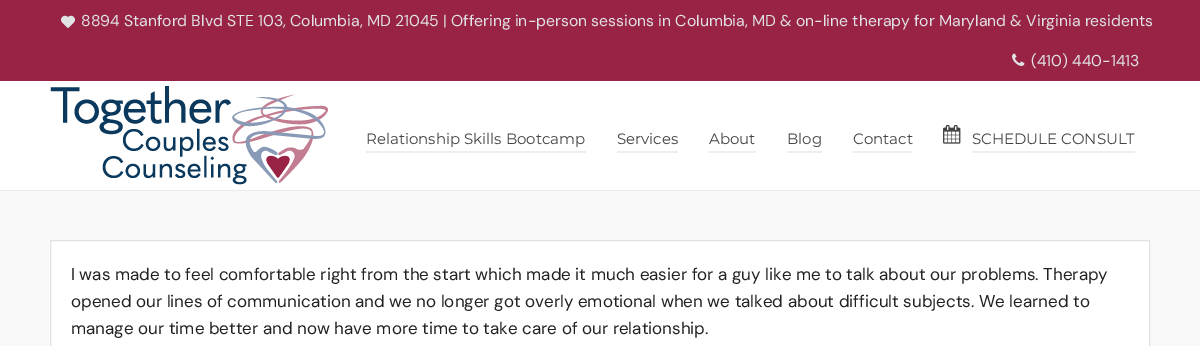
%!PS
<< /PageSize [1200 346] >> setpagedevice
/m/moveto load def
/l/rlineto load def
/z/closepath load def
/f/fill load def
/s/stroke load def
/q/gsave load def
/Q_/grestore load def
/C { dup -16 bitshift 255 div exch dup -8 bitshift 255 and 255 div exch 255 and 255 div setrgbcolor } def
/F { [ exch dup neg 0 0 3 -1 roll 0 0 ] selectfont } def
/T { moveto show } def
/R { rectfill } def
/I { 5 dict begin { /h /w /y /x /name } { exch def } forall
  gsave x y translate w h scale
  w h 8 [w 0 0 h 0 0] name (r) file false 3 colorimage grestore end } def
0 346 translate 1 -1 scale
4 setmiterlimit
16#F9F9F9 C
0 0 1200 346 R
16#992345 C
0 0 1200 81 R
(1.rgb) 61 15 14 13 I
/DMSans-Regular 15.78 F
16#E0E2E5 C
(8894 Stanford Blvd STE 103, Columbia, MD 21045 | Offering in-person sessions in Columbia, MD & on-line therapy for Maryland & Virginia residents) 81 26 T
(2.rgb) 1012 53 13 13 I
(\(410\) 440-1413) 1031 66 T
16#FFFFFF C
0 81 1200 109 R
16#EBEBEB C
0 190 1200 1 R
(3.rgb) 50 86 278 99 I
/Montserrat-Regular 15 F
16#444444 C
(Relationship Skills Bootcamp) 366 144 T
16#EEEEEE C
366 151 220 2 R
16#444444 C
(Services) 617 144 T
16#EEEEEE C
617 151 61 2 R
16#444444 C
(About) 709 144 T
16#EEEEEE C
709 151 47 2 R
16#444444 C
(Blog) 787 144 T
16#EEEEEE C
787 151 35 2 R
16#444444 C
(Contact) 853 144 T
16#EEEEEE C
853 151 59 2 R
(4.rgb) 943 124 18 20 I
16#444444 C
(SCHEDULE CONSULT) 972 144 T
16#EEEEEE C
972 151 163 2 R
16#FFFFFF C
50.5 240.5 m 1099 0 l 0 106 l -1099 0 l z q f Q_
16#E0E2E5 C
s
/DMSans-Regular 17 F
16#222222 C
(I was made to feel comfortable right from the start which made it much easier for a guy like me to talk about our problems. Therapy) 71 280 T
(opened our lines of communication and we no longer got overly emotional when we talked about difficult subjects. We learned to) 71 307 T
(manage our time better and now have more time to take care of our relationship.) 71 334 T
showpage
